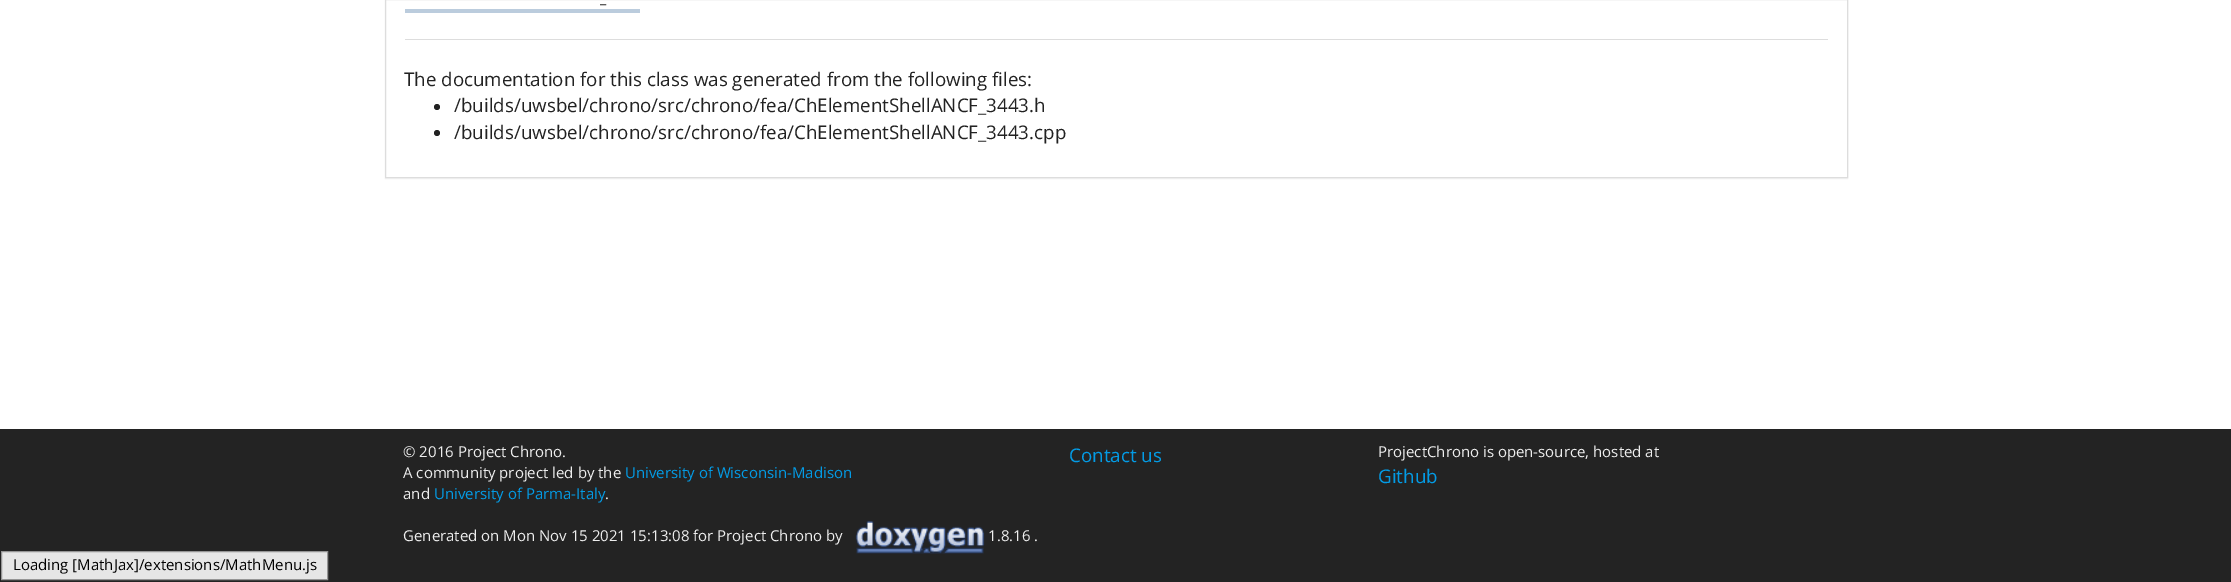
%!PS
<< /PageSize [2231 582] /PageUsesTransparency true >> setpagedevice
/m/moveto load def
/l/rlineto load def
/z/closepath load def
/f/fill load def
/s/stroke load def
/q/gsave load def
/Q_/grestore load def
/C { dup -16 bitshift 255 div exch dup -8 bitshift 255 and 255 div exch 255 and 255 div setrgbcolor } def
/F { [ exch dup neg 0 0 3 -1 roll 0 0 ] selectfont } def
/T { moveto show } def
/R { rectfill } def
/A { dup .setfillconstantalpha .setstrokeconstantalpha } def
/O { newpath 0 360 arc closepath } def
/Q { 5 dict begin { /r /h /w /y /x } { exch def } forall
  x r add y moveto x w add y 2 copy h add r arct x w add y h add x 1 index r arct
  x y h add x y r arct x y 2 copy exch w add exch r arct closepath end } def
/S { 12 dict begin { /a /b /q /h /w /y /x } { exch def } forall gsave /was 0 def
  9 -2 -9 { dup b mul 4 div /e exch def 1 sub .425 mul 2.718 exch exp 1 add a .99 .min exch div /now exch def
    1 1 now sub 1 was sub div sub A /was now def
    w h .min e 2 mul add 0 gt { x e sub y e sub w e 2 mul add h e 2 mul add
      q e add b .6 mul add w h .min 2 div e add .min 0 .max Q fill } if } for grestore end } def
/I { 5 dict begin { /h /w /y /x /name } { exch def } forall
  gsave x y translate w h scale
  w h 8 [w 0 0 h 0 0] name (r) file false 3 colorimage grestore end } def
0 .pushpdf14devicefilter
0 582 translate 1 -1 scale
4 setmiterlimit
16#FFFFFF C
0 0 2231 582 R
16#000000 C
385 -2 1463 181 0 .5 .05 S
16#FFFFFF C
385.5 -.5 m 1462 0 l 0 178 l -1462 0 l z q f Q_
16#DDDDDD C
s
/OpenSans-Bold 15 F
16#222222 C
(_) 600 3 T
16#BBCCDD C
405 9 235 4 R
16#DDDDDD C
405 39 1423 1 R
/OpenSans-Regular 18.75 F
16#222222 C
(The documentation for this class was generated from the following files:) 404 86 T
437 107 3 O f
(/builds/uwsbel/chrono/src/chrono/fea/ChElementShellANCF_3443.h) 454 112 T
437 133 3 O f
(/builds/uwsbel/chrono/src/chrono/fea/ChElementShellANCF_3443.cpp) 454 139 T
16#232323 C
0 429 2231 153 R
/OpenSans-Regular 15 F
16#EEEEEE C
(© 2016 Project Chrono.) 403 457 T
(A community project led by the) 403 478 T
16#039BE5 C
(University of Wisconsin-Madison) 625 478 T
16#EEEEEE C
(and) 403 499 T
16#039BE5 C
(University of Parma-Italy) 434 499 T
16#EEEEEE C
(.) 605 499 T
/OpenSans-Regular 18.75 F
16#039BE5 C
(Contact us) 1069 462 T
/OpenSans-Regular 15 F
16#EEEEEE C
(ProjectChrono is open-source, hosted at) 1378 457 T
/OpenSans-Regular 18.75 F
16#039BE5 C
(Github) 1378 483 T
/OpenSans-Regular 15 F
16#EEEEEE C
(Generated on Mon Nov 15 2021 15:13:08 for Project Chrono by) 403 541 T
(1.rgb) 855 520 130 34 I
(1.8.16 .) 988 541 T
16#E6E6E6 C
1.5 551.5 m 326 0 l 0 28 l -326 0 l z q f Q_
16#959595 C
s
16#000000 C
(Loading [MathJax]/extensions/MathMenu.js) 13 570 T
.poppdf14devicefilter showpage
